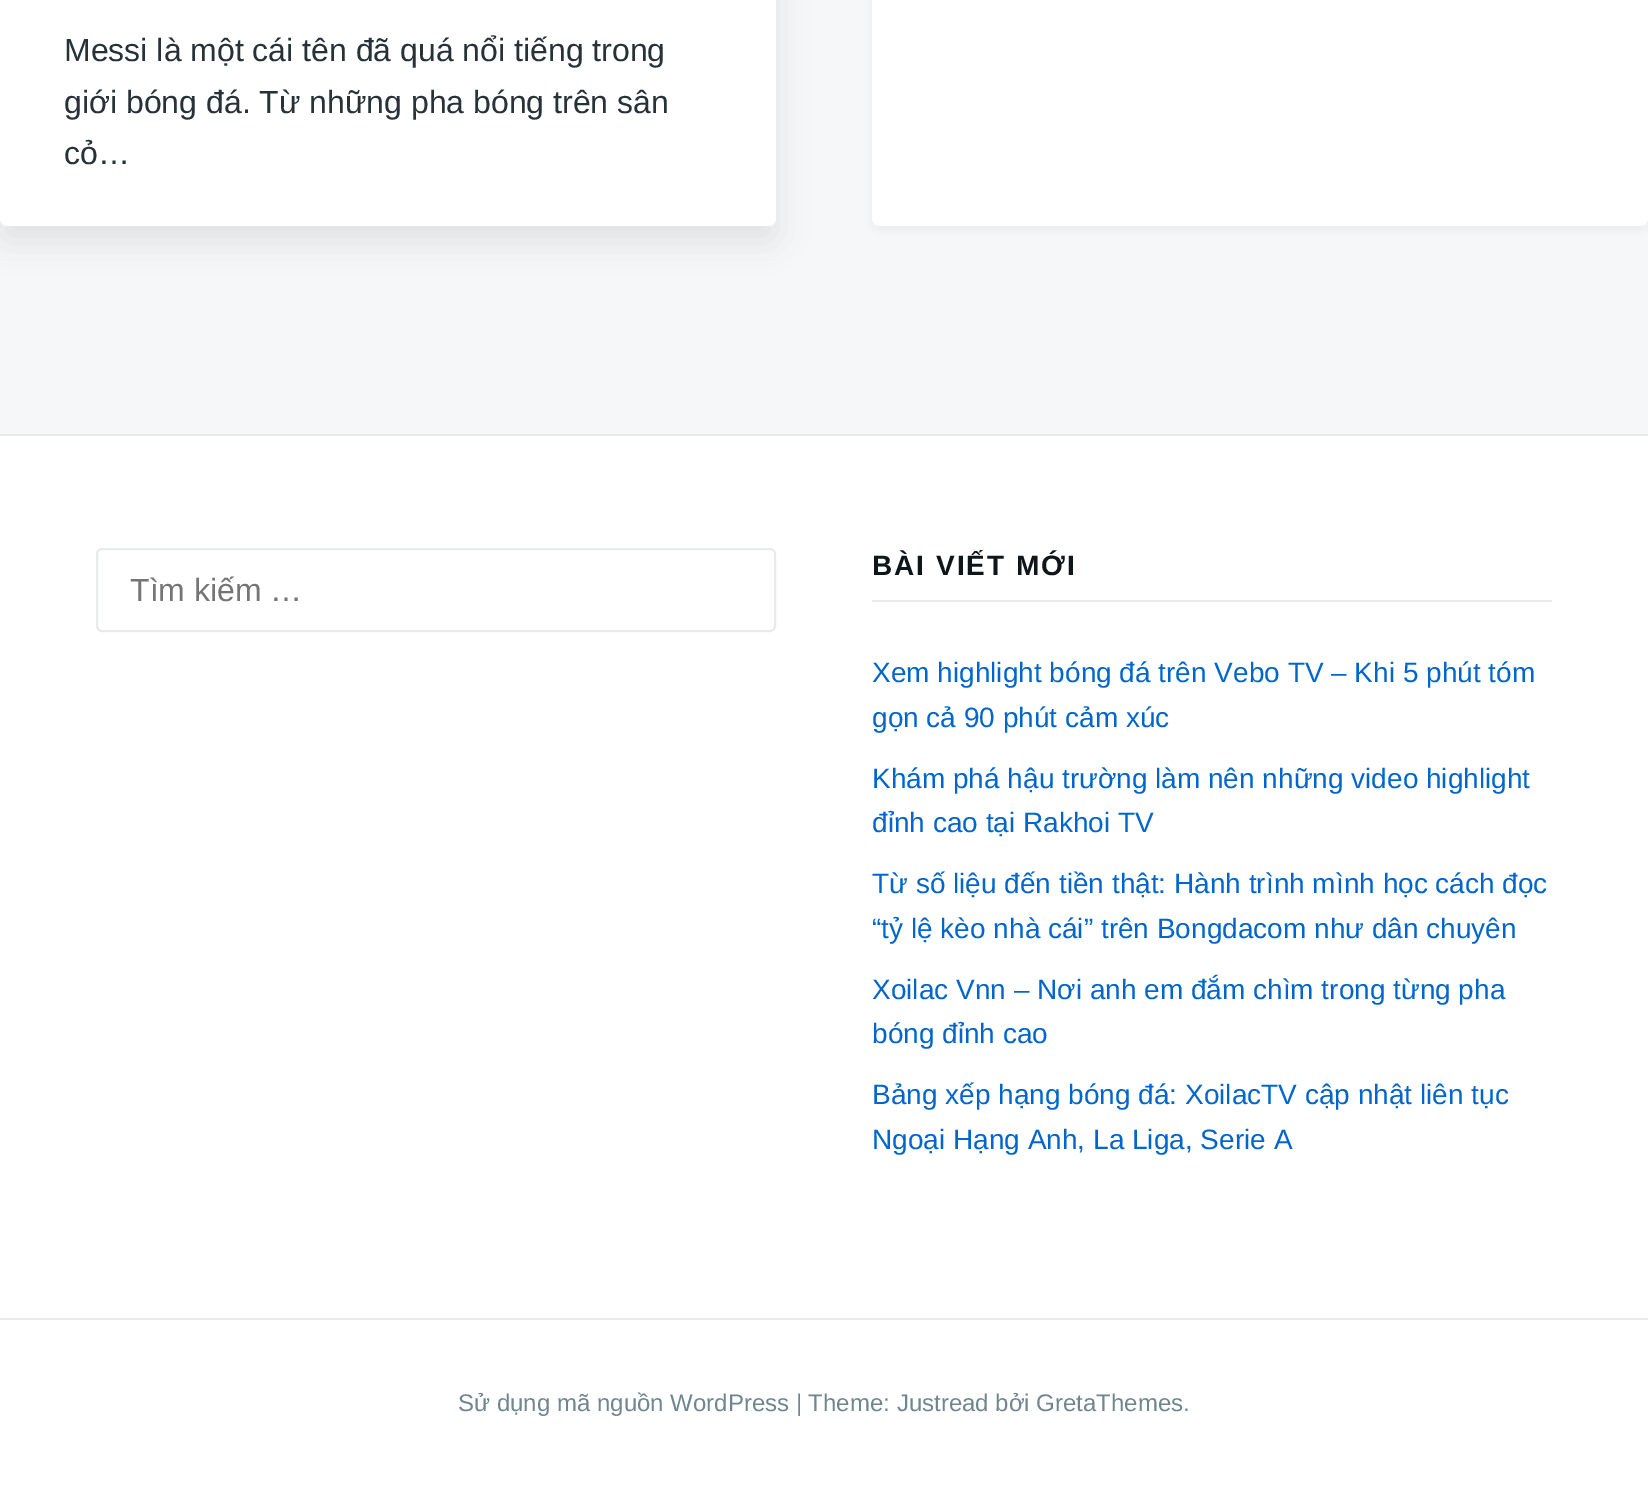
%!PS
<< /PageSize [1648 1486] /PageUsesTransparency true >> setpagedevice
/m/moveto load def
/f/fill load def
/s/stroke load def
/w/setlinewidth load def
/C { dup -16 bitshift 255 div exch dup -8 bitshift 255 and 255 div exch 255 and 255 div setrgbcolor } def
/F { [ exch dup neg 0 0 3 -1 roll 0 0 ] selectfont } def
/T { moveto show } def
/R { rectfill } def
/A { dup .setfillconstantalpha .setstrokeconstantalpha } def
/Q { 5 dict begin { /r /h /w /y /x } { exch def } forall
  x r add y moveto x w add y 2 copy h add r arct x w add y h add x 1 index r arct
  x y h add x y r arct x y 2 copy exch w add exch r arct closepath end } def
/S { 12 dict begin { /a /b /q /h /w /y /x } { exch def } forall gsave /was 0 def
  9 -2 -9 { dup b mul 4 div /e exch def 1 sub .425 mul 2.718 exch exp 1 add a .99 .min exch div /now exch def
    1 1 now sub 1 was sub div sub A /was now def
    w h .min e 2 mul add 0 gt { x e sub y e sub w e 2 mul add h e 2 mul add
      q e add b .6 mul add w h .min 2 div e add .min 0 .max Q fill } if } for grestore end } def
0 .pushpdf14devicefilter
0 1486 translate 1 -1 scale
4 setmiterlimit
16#F5F7F8 C
0 0 1648 1486 R
16#263238 C
0 -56 776 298 8 16 .1 S
16#FFFFFF C
0 -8 776 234 8 Q f
/LiberationSans-Regular 32 F
16#263238 C
(Messi là một cái tên đã quá nổi tiếng trong) 64 61 T
(giới bóng đá. Từ những pha bóng trên sân) 64 113 T
(cỏ…) 64 164 T
872 -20 776 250 8 4 .05 S
16#FFFFFF C
872 -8 776 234 8 Q f
0 436 1648 1050 R
16#E9EBEB C
0 434 1648 2 R
0 1318 1648 2 R
2 w
97 549 678 82 5 Q s
16#757575 C
(Tìm kiếm …) 130 601 T
16#E9EBEB C
872 600 680 2 R
/LiberationSans-Bold 28 F
16#0F161A C
872 575 m 2 0 (BÀI VIẾT MỚI) ashow
/LiberationSans-Regular 28 F
16#0066CC C
(Xem highlight bóng đá trên Vebo TV – Khi 5 phút tóm) 872 682 T
(gọn cả 90 phút cảm xúc) 872 727 T
(Khám phá hậu trường làm nên những video highlight) 872 788 T
(đỉnh cao tại Rakhoi TV) 872 832 T
(Từ số liệu đến tiền thật: Hành trình mình học cách đọc) 872 893 T
(“tỷ lệ kèo nhà cái” trên Bongdacom như dân chuyên) 872 938 T
(Xoilac Vnn – Nơi anh em đắm chìm trong từng pha) 872 999 T
(bóng đỉnh cao) 872 1043 T
(Bảng xếp hạng bóng đá: XoilacTV cập nhật liên tục) 872 1104 T
(Ngoại Hạng Anh, La Liga, Serie A) 872 1149 T
/LiberationSans-Regular 24 F
16#6F8590 C
(Sử dụng mã nguồn WordPress | Theme: Justread bởi GretaThemes.) 458 1411 T
.poppdf14devicefilter showpage
